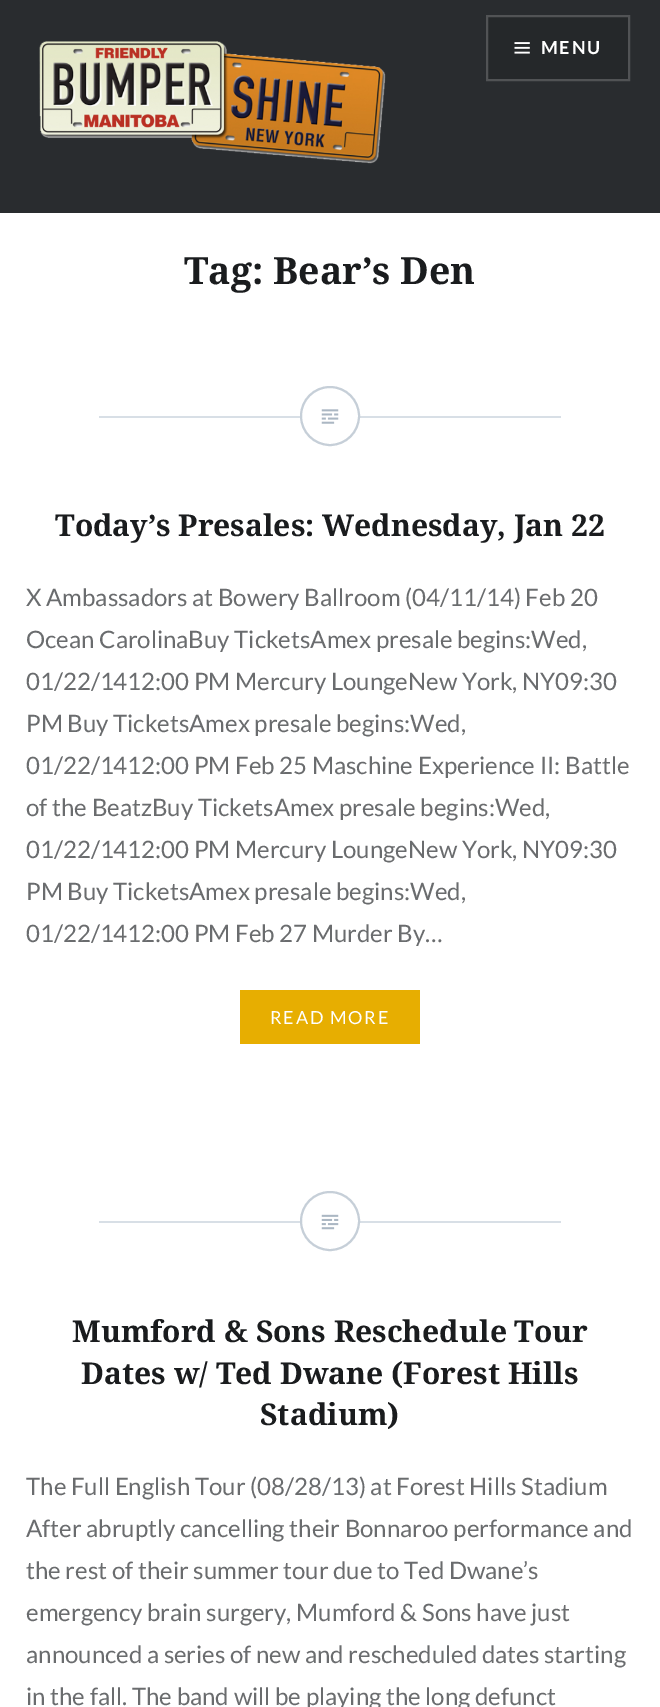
%!PS
<< /PageSize [660 1707] >> setpagedevice
/m/moveto load def
/l/rlineto load def
/z/closepath load def
/f/fill load def
/s/stroke load def
/q/gsave load def
/Q_/grestore load def
/w/setlinewidth load def
/C { dup -16 bitshift 255 div exch dup -8 bitshift 255 and 255 div exch 255 and 255 div setrgbcolor } def
/F { [ exch dup neg 0 0 3 -1 roll 0 0 ] selectfont } def
/T { moveto show } def
/R { rectfill } def
/O { newpath 0 360 arc closepath } def
/I { 5 dict begin { /h /w /y /x /name } { exch def } forall
  gsave x y translate w h scale
  w h 8 [w 0 0 h 0 0] name (r) file false 3 colorimage grestore end } def
0 1707 translate 1 -1 scale
4 setmiterlimit
16#FFFFFF C
0 0 660 1707 R
16#292C2F C
0 0 660 213 R
(1.rgb) 39 41 347 123 I
16#25282A C
487 16 m 142 0 l 0 64 l -142 0 l z q f Q_
16#515355 C
2 w
s
(2.rgb) 514 42 16 12 I
/Lato-Bold 18 F
16#FFFFFF C
541 54 m 1.75 0 (MENU) ashow
/NotoSerif-Bold 37.5 F
16#1A1C1E C
(Tag: Bear’s Den) 184 284 T
16#D8DFE6 C
99 416 462 2 R
16#FFFFFF C
330 416 29 O q f Q_
16#C6CFD8 C
s
(3.rgb) 321 409 18 15 I
/NotoSerif-Bold 30 F
16#1A1C1E C
(Today’s Presales: Wednesday, Jan 22) 55 536 T
/Lato-Regular 24 F
16#6A6C6E C
(X Ambassadors at Bowery Ballroom \(04/11/14\) Feb 20) 26 606 T
(Ocean CarolinaBuy TicketsAmex presale begins:Wed,) 26 648 T
(01/22/1412:00 PM Mercury LoungeNew York, NY09:30) 26 690 T
(PM Buy TicketsAmex presale begins:Wed,) 26 732 T
(01/22/1412:00 PM Feb 25 Maschine Experience II: Battle) 26 774 T
(of the BeatzBuy TicketsAmex presale begins:Wed,) 26 816 T
(01/22/1412:00 PM Mercury LoungeNew York, NY09:30) 26 858 T
(PM Buy TicketsAmex presale begins:Wed,) 26 900 T
(01/22/1412:00 PM Feb 27 Murder By…) 26 942 T
16#E7AE01 C
240 990 180 54 R
/Lato-Regular 18 F
16#FFFFFF C
270 1024 m 1.75 0 (READ MORE) ashow
16#D8DFE6 C
99 1221 462 2 R
16#FFFFFF C
330 1221 29 O q f Q_
16#C6CFD8 C
s
(4.rgb) 321 1214 18 16 I
/NotoSerif-Bold 30 F
16#1A1C1E C
(Mumford & Sons Reschedule Tour) 72 1342 T
(Dates w/ Ted Dwane \(Forest Hills) 81 1384 T
(Stadium\)) 260 1425 T
/Lato-Regular 24 F
16#6A6C6E C
(The Full English Tour \(08/28/13\) at Forest Hills Stadium) 26 1495 T
(After abruptly cancelling their Bonnaroo performance and) 26 1537 T
(the rest of their summer tour due to Ted Dwane’s) 26 1579 T
(emergency brain surgery, Mumford & Sons have just) 26 1621 T
(announced a series of new and rescheduled dates starting) 26 1663 T
(in the fall. The band will be playing the long defunct) 26 1705 T
showpage
